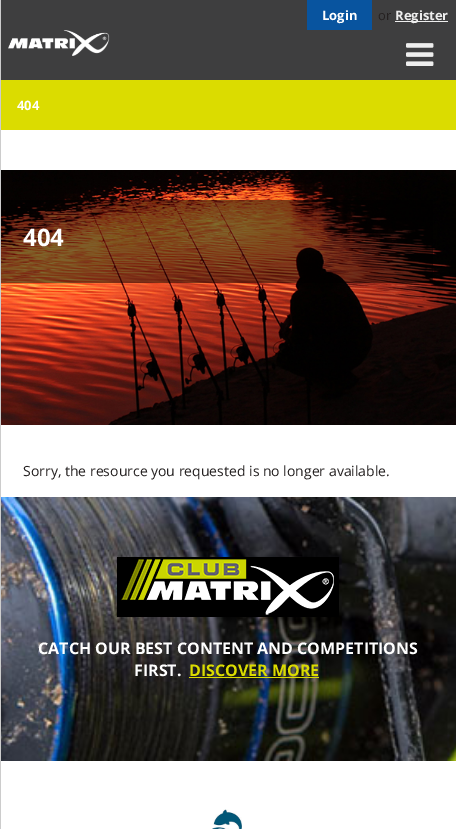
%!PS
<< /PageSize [456 829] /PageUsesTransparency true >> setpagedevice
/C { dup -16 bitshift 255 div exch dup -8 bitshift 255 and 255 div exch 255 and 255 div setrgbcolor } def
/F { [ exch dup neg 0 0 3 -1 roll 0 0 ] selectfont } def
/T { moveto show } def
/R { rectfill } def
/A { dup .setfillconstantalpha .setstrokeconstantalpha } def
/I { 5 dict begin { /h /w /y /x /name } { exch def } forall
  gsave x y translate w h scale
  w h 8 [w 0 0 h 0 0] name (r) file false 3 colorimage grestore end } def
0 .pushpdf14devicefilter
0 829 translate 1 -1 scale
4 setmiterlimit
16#FFFFFF C
0 0 456 829 R
16#CCCCCC C
0 0 1 829 R
16#3E3E3F C
1 0 455 80 R
16#08549F C
307 0 65 30 R
/OpenSans-Bold 13 F
16#FFFFFF C
(Login) 322 20 T
/OpenSans-Regular 13 F
16#242020 C
(or) 378 20 T
16#EEEEEE C
395 21 53 1 R
/OpenSans-Bold 13 F
(Register) 395 20 T
(1.rgb) 406 43 28 23 I
(2.rgb) 8 30 102 26 I
16#DBDC00 C
1 80 455 50 R
16#FFFFFF C
(404) 17 110 T
(3.rgb) 1 170 455 255 I
0.5 A
16#000000 C
23 200 410 83 R
1 200 22 83 R
/OpenSans-Bold 24 F
1 A
16#FFFFFF C
(404) 23 246 T
/OpenSans-Regular 14 F
16#242020 C
(Sorry, the resource you requested is no longer available.) 23 476 T
(4.rgb) 1 497 455 264 I
16#000000 C
117 557 222 60 R
(5.rgb) 121 559 213 56 I
/OpenSans-Bold 16 F
16#FFFFFF C
(CATCH OUR BEST CONTENT AND COMPETITIONS) 38 654 T
(FIRST.) 134 676 T
16#DBDC00 C
(DISCOVER MORE) 189 676 T
189 677 130 1 R
(6.rgb) 212 809 30 20 I
.poppdf14devicefilter showpage
